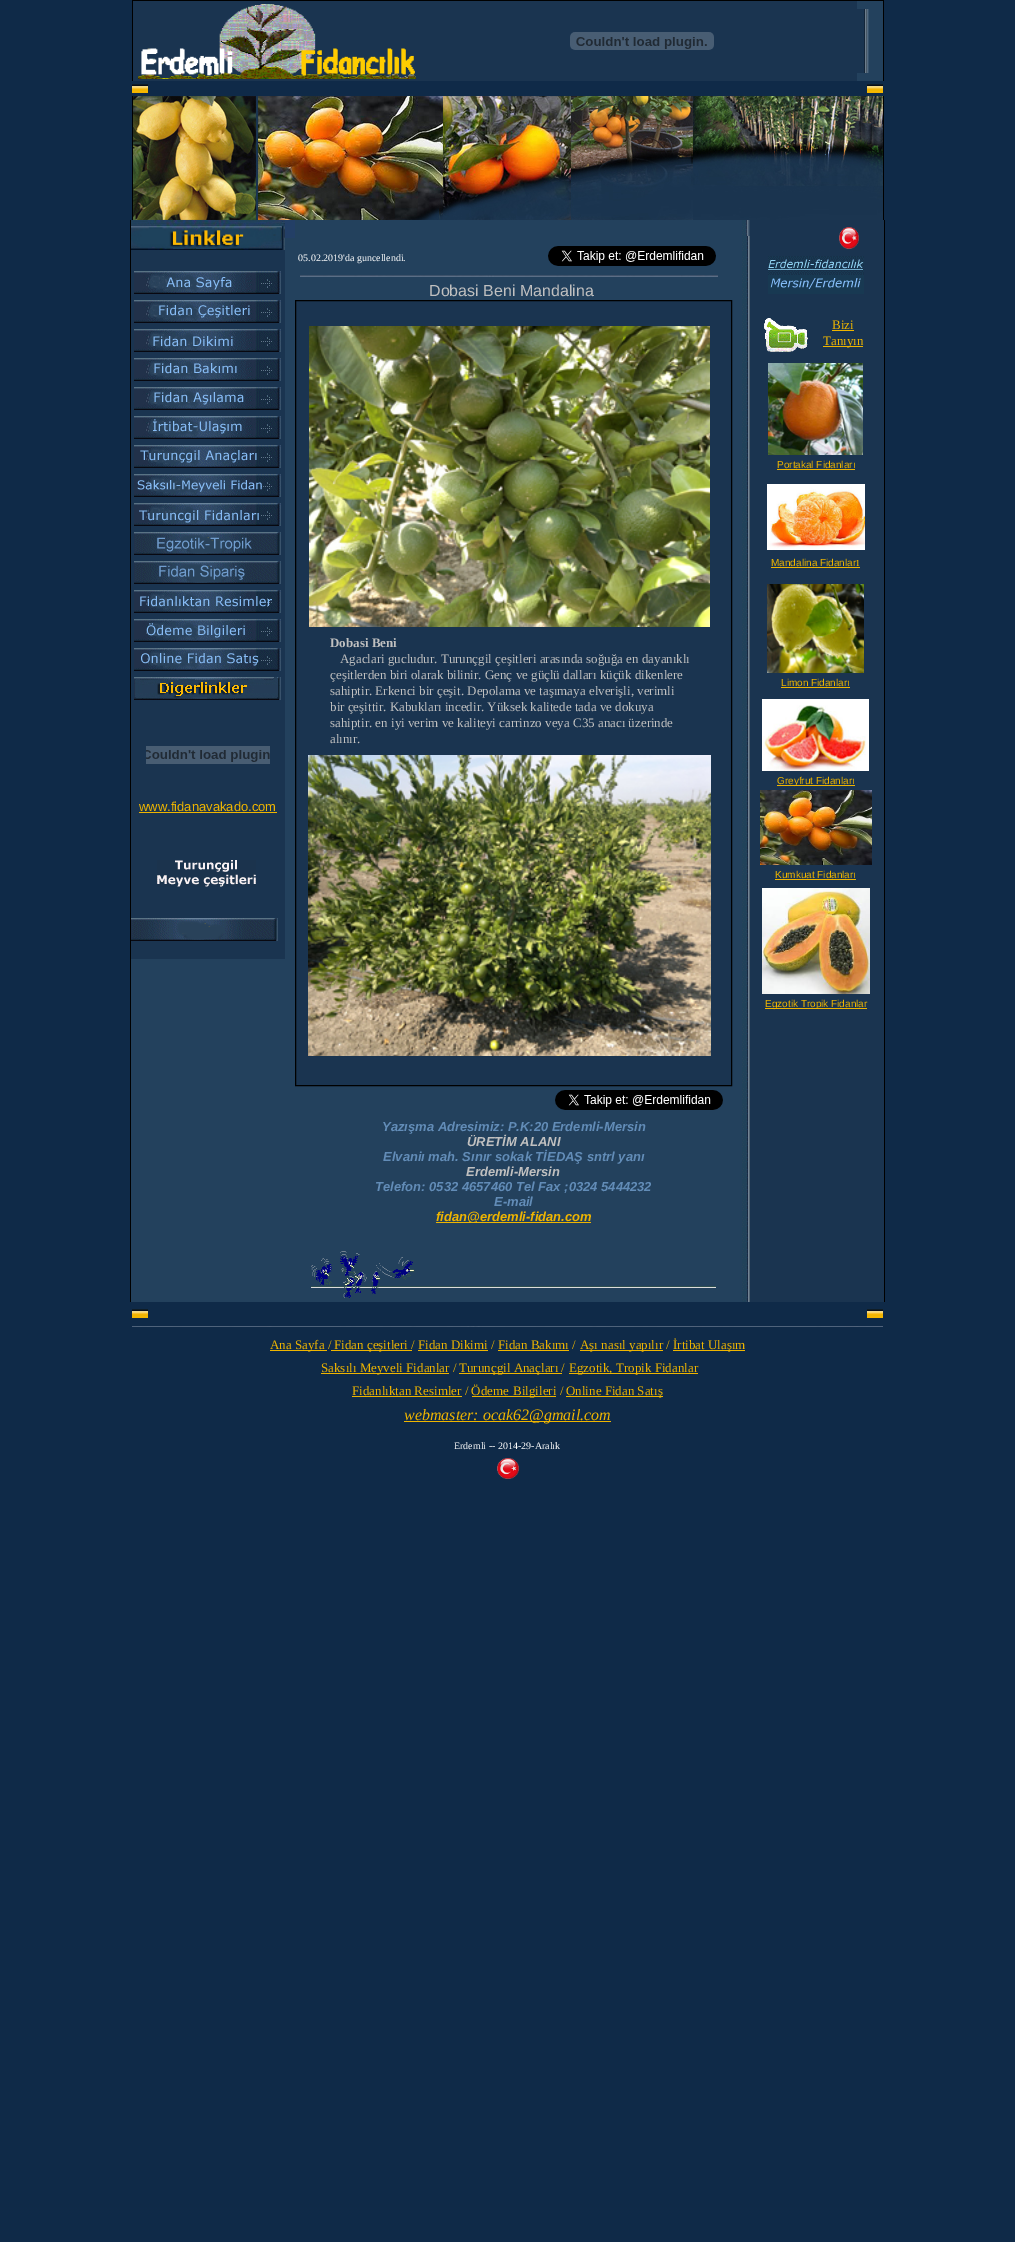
%!PS
<< /PageSize [1015 2242] >> setpagedevice
/m/moveto load def
/l/rlineto load def
/z/closepath load def
/f/fill load def
/s/stroke load def
/q/gsave load def
/Q_/grestore load def
/C { dup -16 bitshift 255 div exch dup -8 bitshift 255 and 255 div exch 255 and 255 div setrgbcolor } def
/F { [ exch dup neg 0 0 3 -1 roll 0 0 ] selectfont } def
/T { moveto show } def
/R { rectfill } def
/I { 5 dict begin { /h /w /y /x /name } { exch def } forall
  gsave x y translate w h scale
  w h 8 [w 0 0 h 0 0] name (r) file false 3 colorimage grestore end } def
0 2242 translate 1 -1 scale
4 setmiterlimit
16#0F2A48 C
0 0 1015 2242 R
16#1A3450 C
133 1 724 80 R
16#000000 C
132 0 752 1 R
883 0 1 81 R
132 0 1 81 R
(1.rgb) 138 4 278 75 I
(2.rgb) 570 32 144 18 I
16#23415D C
857 1 26 80 R
(3.rgb) 857 9 12 64 I
(4.rgb) 132 84 16 9 I
(4.rgb) 867 84 16 9 I
16#000000 C
883 96 1 124 R
132 96 1 124 R
(5.rgb) 133 96 750 124 I
16#23415D C
131 220 611 1082 R
16#000000 C
884 220 1 1082 R
130 220 1 1082 R
16#233F66 C
285 220 10 18 R
/LiberationSerif-Regular 10 F
16#FFFFFF C
(05.02.2019'da guncellendi.) 298 261 T
(6.rgb) 548 246 168 20 I
(7.rgb) 300 275 418 2 I
/LiberationSans-Regular 16 F
16#C0C0C0 C
(Dobasi Beni Mandalina) 429 296 T
16#1A3450 C
295.5 300.5 m 436 0 l 0 785 l -436 0 l z q f Q_
16#000000 C
s
(8.rgb) 309 326 401 301 I
/LiberationSerif-Bold 13 F
16#C0C0C0 C
(Dobasi Beni) 330 647 T
/LiberationSerif-Regular 13 F
(Agaclari gucludur. Turunçgil çeşitleri arasında soğuğa en dayanıklı) 340 663 T
(çeşitlerden biri olarak bilinir. Genç ve güçlü dalları küçük dikenlere) 330 679 T
(sahiptir. Erkenci bir çeşit. Depolama ve taşımaya elverişli, verimli) 330 695 T
(bir çeşittir. Kabukları incedir. Yüksek kalitede tada ve dokuya) 330 711 T
(sahiptir. en iyi verim ve kaliteyi carrinzo veya C35 anacı üzerinde) 330 727 T
(alınır.) 330 743 T
(9.rgb) 308 755 403 301 I
(10.rgb) 555 1090 168 20 I
/LiberationSans-BoldItalic 13 F
16#628CB7 C
(Yazışma Adresimiz: P.K:20 Erdemli-Mersin) 382 1131 T
16#C0C0C0 C
(ÜRETİM ALANI) 467 1146 T
16#628CB7 C
(Elvaniı mah. Sınır sokak TİEDAŞ sntrl yanı) 383 1161 T
16#C0C0C0 C
(Erdemli-Mersin) 466 1176 T
16#628CB7 C
(Telefon: 0532 4657460 Tel Fax ;0324 5444232) 375 1191 T
(E-mail) 494 1206 T
16#EFB500 C
436 1222 155 1 R
(fidan@erdemli-fidan.com) 436 1221 T
(11.rgb) 742 220 8 1082 I
(12.rgb) 744 220 6 16 I
16#1A3450 C
750 220 134 1082 R
131 250 154 709 R
(13.rgb) 131 220 154 30 I
(14.rgb) 134 271 147 23 I
(15.rgb) 134 300 147 23 I
(16.rgb) 134 329 147 23 I
(17.rgb) 134 358 147 23 I
(18.rgb) 134 387 147 23 I
(19.rgb) 134 416 147 23 I
(20.rgb) 134 445 147 23 I
(21.rgb) 134 474 147 23 I
(22.rgb) 134 503 147 23 I
(23.rgb) 134 532 147 23 I
(24.rgb) 134 561 147 23 I
(25.rgb) 134 590 147 23 I
(26.rgb) 134 619 147 23 I
(27.rgb) 134 648 147 23 I
(28.rgb) 134 677 147 23 I
(29.rgb) 146 746 124 18 I
/LiberationSans-Regular 13 F
16#EFB500 C
(www.fidanavakado.com) 139 811 T
139 812 138 1 R
(30.rgb) 157 860 99 27 I
(31.rgb) 131 918 147 23 I
(32.rgb) 839 227 20 22 I
(33.rgb) 768 256 96 19 I
(34.rgb) 768 275 96 19 I
(35.rgb) 764 318 44 34 I
/LiberationSerif-Regular 13 F
(Bizi) 832 329 T
832 330 22 1 R
823 346 40 1 R
(Tanıyın) 823 345 T
(36.rgb) 768 363 95 92 I
/LiberationSans-Regular 10 F
(Portakal Fidanları) 777 468 T
777 469 78 1 R
(37.rgb) 767 484 98 66 I
(Mandalina Fidanlar) 771 566 T
/LiberationSerif-Regular 13 F
(ı) 856 566 T
771 567 89 1 R
(38.rgb) 767 584 97 89 I
/LiberationSans-Regular 10 F
(Limon Fidanları) 781 686 T
781 687 69 1 R
(39.rgb) 762 699 107 72 I
777 785 78 1 R
(Greyfrut Fidanları) 777 784 T
(40.rgb) 760 790 112 75 I
(Kumkuat Fidanları) 775 878 T
775 879 81 1 R
(41.rgb) 762 888 108 106 I
765 1008 102 1 R
(Egzotik Tropik Fidanlar) 765 1007 T
(42.rgb) 311 1251 405 47 I
(4.rgb) 132 1309 16 9 I
(4.rgb) 867 1309 16 9 I
(43.rgb) 132 1326 751 1 I
270 1350 57 1 R
/LiberationSerif-Regular 13 F
(Ana Sayfa /) 270 1349 T
331 1350 81 1 R
(Fidan çeşitleri / Fidan Dikimi / Fidan Bakımı /) 334 1349 T
418 1350 70 1 R
498 1350 71 1 R
580 1350 83 1 R
(Aşı nasıl yapılır /) 580 1349 T
673 1350 72 1 R
(İrtibat Ulaşım) 673 1349 T
321 1373 128 1 R
(Saksılı Meyveli Fidanlar /) 321 1372 T
459 1373 103 1 R
(Turunçgil Anaçları /) 459 1372 T
569 1373 129 1 R
(Egzotik, Tropik Fidanlar) 569 1372 T
(Fidanlıktan Resimler / Ödeme) 352 1395 T
352 1396 110 1 R
472 1396 84 1 R
(Bilgileri /) 513 1395 T
566 1396 97 1 R
(Online Fidan Satış) 566 1395 T
404 1421 207 1 R
/LiberationSerif-Italic 16 F
(webmaster: ocak62@gmail.com) 404 1420 T
/LiberationSerif-Regular 10 F
16#FFFFFF C
(Erdemli -- 2014-29-Aralık) 454 1449 T
(44.rgb) 497 1458 22 21 I
showpage
